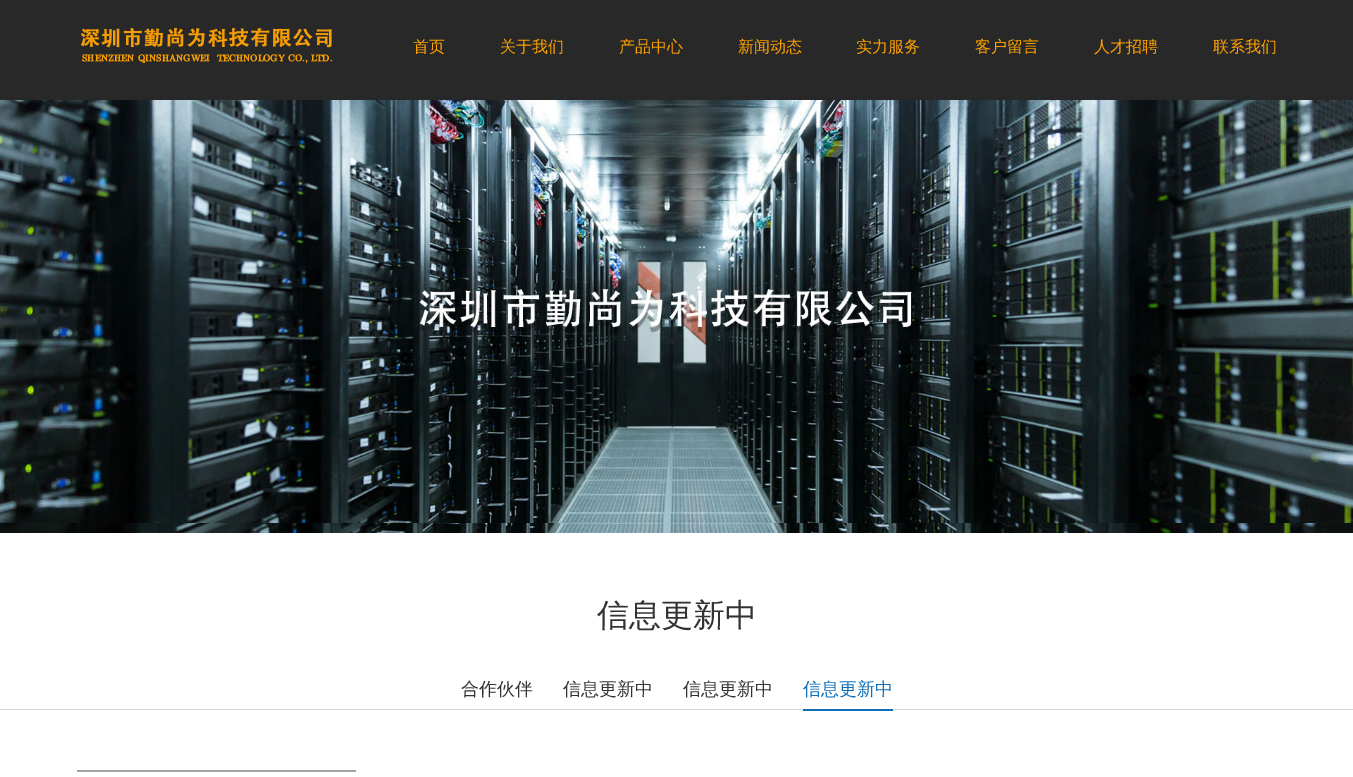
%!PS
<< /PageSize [1353 777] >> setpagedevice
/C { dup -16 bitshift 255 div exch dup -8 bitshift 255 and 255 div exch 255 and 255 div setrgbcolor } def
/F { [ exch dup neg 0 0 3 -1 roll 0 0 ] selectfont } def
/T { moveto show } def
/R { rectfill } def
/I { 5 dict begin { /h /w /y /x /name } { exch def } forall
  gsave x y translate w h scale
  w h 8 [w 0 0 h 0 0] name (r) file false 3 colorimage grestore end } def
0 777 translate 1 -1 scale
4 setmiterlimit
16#FFFFFF C
0 0 1353 777 R
16#282828 C
0 0 1353 100 R
(1.rgb) 80 28 253 35 I
/WenQuanYiZenHei-Medium 16 F
16#FFA200 C
(首页) 413 52 T
(关于我们) 500 52 T
(产品中心) 619 52 T
(新闻动态) 738 52 T
(实力服务) 856 52 T
(客户留言) 975 52 T
(人才招聘) 1094 52 T
(联系我们) 1213 52 T
(2.rgb) 0 523 1353 10 I
(3.rgb) 0 100 1353 423 I
/WenQuanYiZenHei-Medium 32 F
16#333333 C
(信息更新中) 597 626 T
16#D7D7D7 C
0 709 1353 1 R
/WenQuanYiZenHei-Medium 18 F
16#333333 C
(合作伙伴) 461 695 T
(信息更新中) 563 695 T
(信息更新中) 683 695 T
16#0E6EB8 C
803 709 90 2 R
(信息更新中) 803 695 T
16#A3A3A3 C
77 770 279 2 R
showpage
